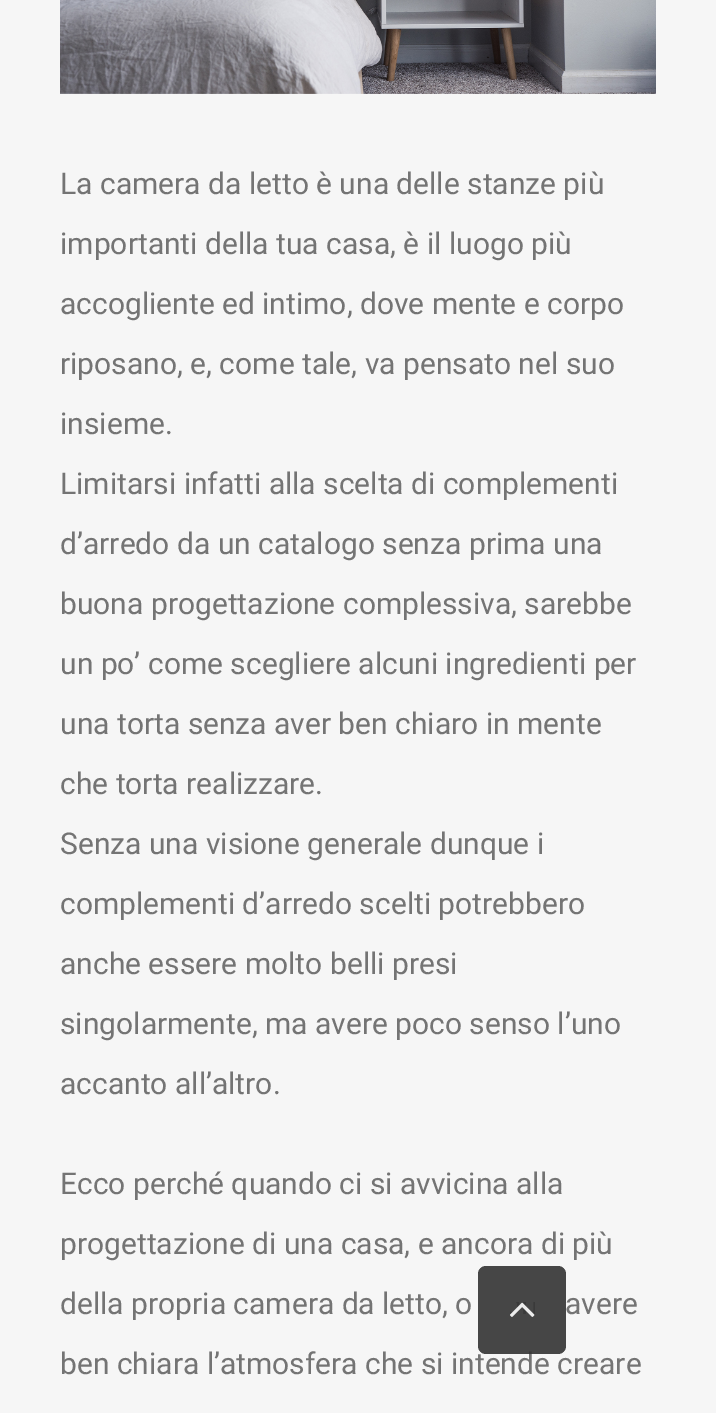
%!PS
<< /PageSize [716 1413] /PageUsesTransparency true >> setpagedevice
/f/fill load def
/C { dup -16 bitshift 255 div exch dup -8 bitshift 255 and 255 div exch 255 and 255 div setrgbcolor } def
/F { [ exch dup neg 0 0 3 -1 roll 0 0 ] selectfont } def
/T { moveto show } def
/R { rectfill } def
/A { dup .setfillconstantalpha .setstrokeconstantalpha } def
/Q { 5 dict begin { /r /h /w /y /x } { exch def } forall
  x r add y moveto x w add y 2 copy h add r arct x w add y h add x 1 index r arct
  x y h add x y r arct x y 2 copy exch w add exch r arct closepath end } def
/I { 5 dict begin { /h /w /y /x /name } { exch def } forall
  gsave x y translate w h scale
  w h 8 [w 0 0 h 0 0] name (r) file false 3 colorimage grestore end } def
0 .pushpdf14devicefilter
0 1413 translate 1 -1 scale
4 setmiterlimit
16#F6F6F6 C
0 0 716 1413 R
(1.rgb) 60 0 596 94 I
/Roboto-Regular 30 F
16#747474 C
(La camera da letto è una delle stanze più) 60 194 T
(importanti della tua casa, è il luogo più) 60 254 T
(accogliente ed intimo, dove mente e corpo) 60 314 T
(riposano, e, come tale, va pensato nel suo) 60 374 T
(insieme.) 60 434 T
(Limitarsi infatti alla scelta di complementi) 60 494 T
(d’arredo da un catalogo senza prima una) 60 554 T
(buona progettazione complessiva, sarebbe) 60 614 T
(un po’ come scegliere alcuni ingredienti per) 60 674 T
(una torta senza aver ben chiaro in mente) 60 734 T
(che torta realizzare.) 60 794 T
(Senza una visione generale dunque i) 60 854 T
(complementi d’arredo scelti potrebbero) 60 914 T
(anche essere molto belli presi) 60 974 T
(singolarmente, ma avere poco senso l’uno) 60 1034 T
(accanto all’altro.) 60 1094 T
(Ecco perché quando ci si avvicina alla) 60 1194 T
(progettazione di una casa, e ancora di più) 60 1254 T
(della propria camera da letto, o) 60 1314 T
(avere) 565 1314 T
(ben chiara l’atmosfera che si intende creare) 60 1374 T
0.9 A
16#333333 C
478 1266 88 88 8 Q f
1 A
(2.rgb) 510 1302 25 15 I
.poppdf14devicefilter showpage
